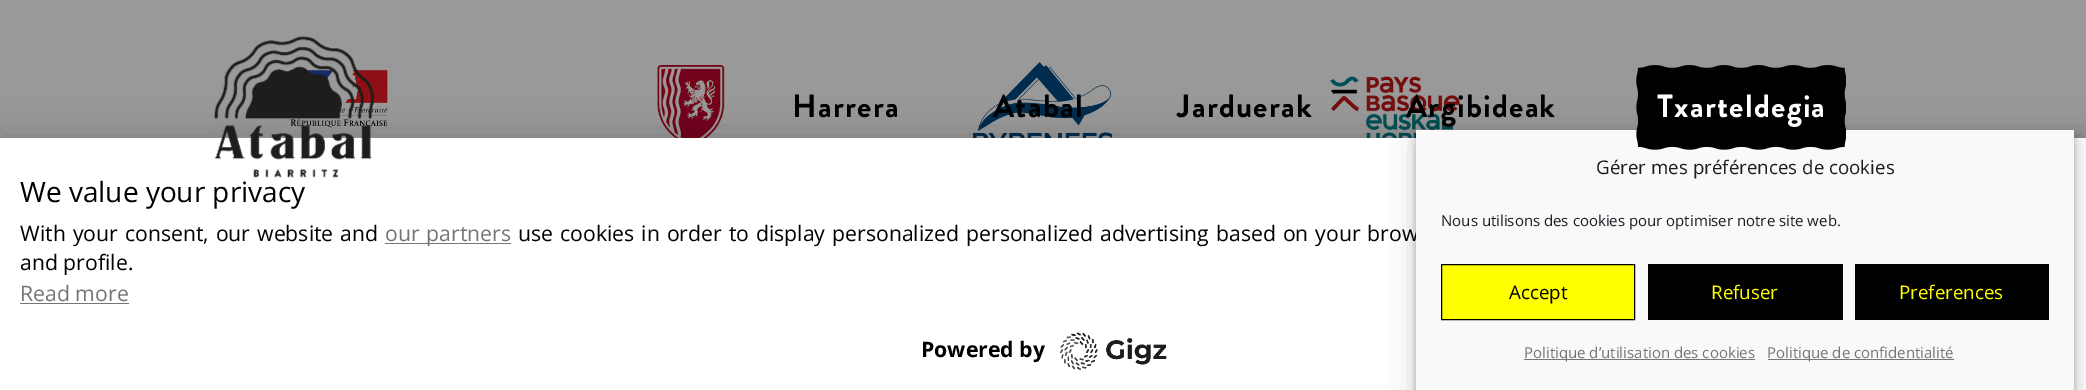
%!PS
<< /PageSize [2086 390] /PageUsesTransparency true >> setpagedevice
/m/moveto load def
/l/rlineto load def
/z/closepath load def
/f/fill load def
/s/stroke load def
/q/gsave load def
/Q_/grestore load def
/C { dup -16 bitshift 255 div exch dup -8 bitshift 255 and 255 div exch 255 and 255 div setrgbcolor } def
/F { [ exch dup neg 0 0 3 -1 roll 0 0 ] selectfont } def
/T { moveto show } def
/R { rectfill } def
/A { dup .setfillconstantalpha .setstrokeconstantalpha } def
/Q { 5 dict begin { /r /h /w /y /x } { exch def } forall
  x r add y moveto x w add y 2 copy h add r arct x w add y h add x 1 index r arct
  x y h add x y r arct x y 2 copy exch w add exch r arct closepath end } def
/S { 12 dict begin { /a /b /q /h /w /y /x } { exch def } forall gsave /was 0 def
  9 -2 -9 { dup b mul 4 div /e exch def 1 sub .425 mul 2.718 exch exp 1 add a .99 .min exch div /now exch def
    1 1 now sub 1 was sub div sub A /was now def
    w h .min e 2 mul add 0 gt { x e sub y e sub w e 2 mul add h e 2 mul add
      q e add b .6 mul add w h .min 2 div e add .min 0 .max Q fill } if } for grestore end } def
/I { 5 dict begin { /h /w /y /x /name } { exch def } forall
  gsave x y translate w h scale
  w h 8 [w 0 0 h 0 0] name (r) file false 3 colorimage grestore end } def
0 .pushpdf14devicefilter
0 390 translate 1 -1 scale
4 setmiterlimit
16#999999 C
0 0 2086 390 R
(1.rgb) 290 70 98 68 I
(2.rgb) 640 65 101 73 I
(3.rgb) 973 62 141 76 I
(4.rgb) 1330 76 130 62 I
16#000000 C
0 138 2086 252 0 19 .2 S
16#FFFFFF C
0 138 2086 252 R
(5.rgb) 214 36 160 142 I
/BrandonGrotesque-Bold 32 F
16#000000 C
792 117 m 1.25 0 (Harrera) ashow
993 117 m 1.25 0 (Atabal) ashow
1177 117 m 1.25 0 (Jarduerak) ashow
1416 138 658 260 0 4 .23 S
1416 143 658 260 0 12.5 .19 S
1406 117 m 1.25 0 (Argibideak) ashow
/OpenSans-Regular 21.25 F
518 241 m 1.4 0 32 (use cookies in order to display personalized personalized advertising based on your brow) widthshow
16#F9F9F9 C
1416 130 658 260 R
(6.rgb) 1636 65 210 85 I
/BrandonGrotesque-Bold 32 F
16#FFFFFF C
1657 117 m 1.25 0 (Txarteldegia) ashow
/OpenSans-Regular 28 F
16#000000 C
(We value your privacy) 20 202 T
/OpenSans-Regular 21.25 F
20 241 m 1.4 0 32 (With your consent, our website and) widthshow
16#757575 C
385 243 126 1 R
385 241 m 1 0 32 (our partners) widthshow
16#000000 C
(and profile.) 20 270 T
16#757575 C
(Read more) 20 301 T
20 303 109 1 R
/OpenSans-Bold 21.25 F
16#000000 C
(Powered by) 921 357 T
(7.rgb) 1060 332 107 38 I
/OpenSans-Regular 18.75 F
16#191E23 C
(Gérer mes préférences de cookies) 1596 174 T
/OpenSans-Regular 15 F
(Nous utilisons des cookies pour optimiser notre site web.) 1441 226 T
16#FFFF00 C
1441.5 264.5 m 193 0 l 0 55 l -193 0 l z q f Q_
16#000000 C
s
/OpenSans-Regular 18.75 F
(Accept) 1509 299 T
1648 264 195 56 R
16#FFFF00 C
(Refuser) 1711 299 T
16#000000 C
1855 264 194 56 R
16#FFFF00 C
(Preferences) 1899 299 T
16#757575 C
1524 359 231 1 R
/OpenSans-Regular 15 F
(Politique d’utilisation des cookies) 1524 358 T
1768 359 186 1 R
(Politique de confidentialité) 1767 358 T
.poppdf14devicefilter showpage
